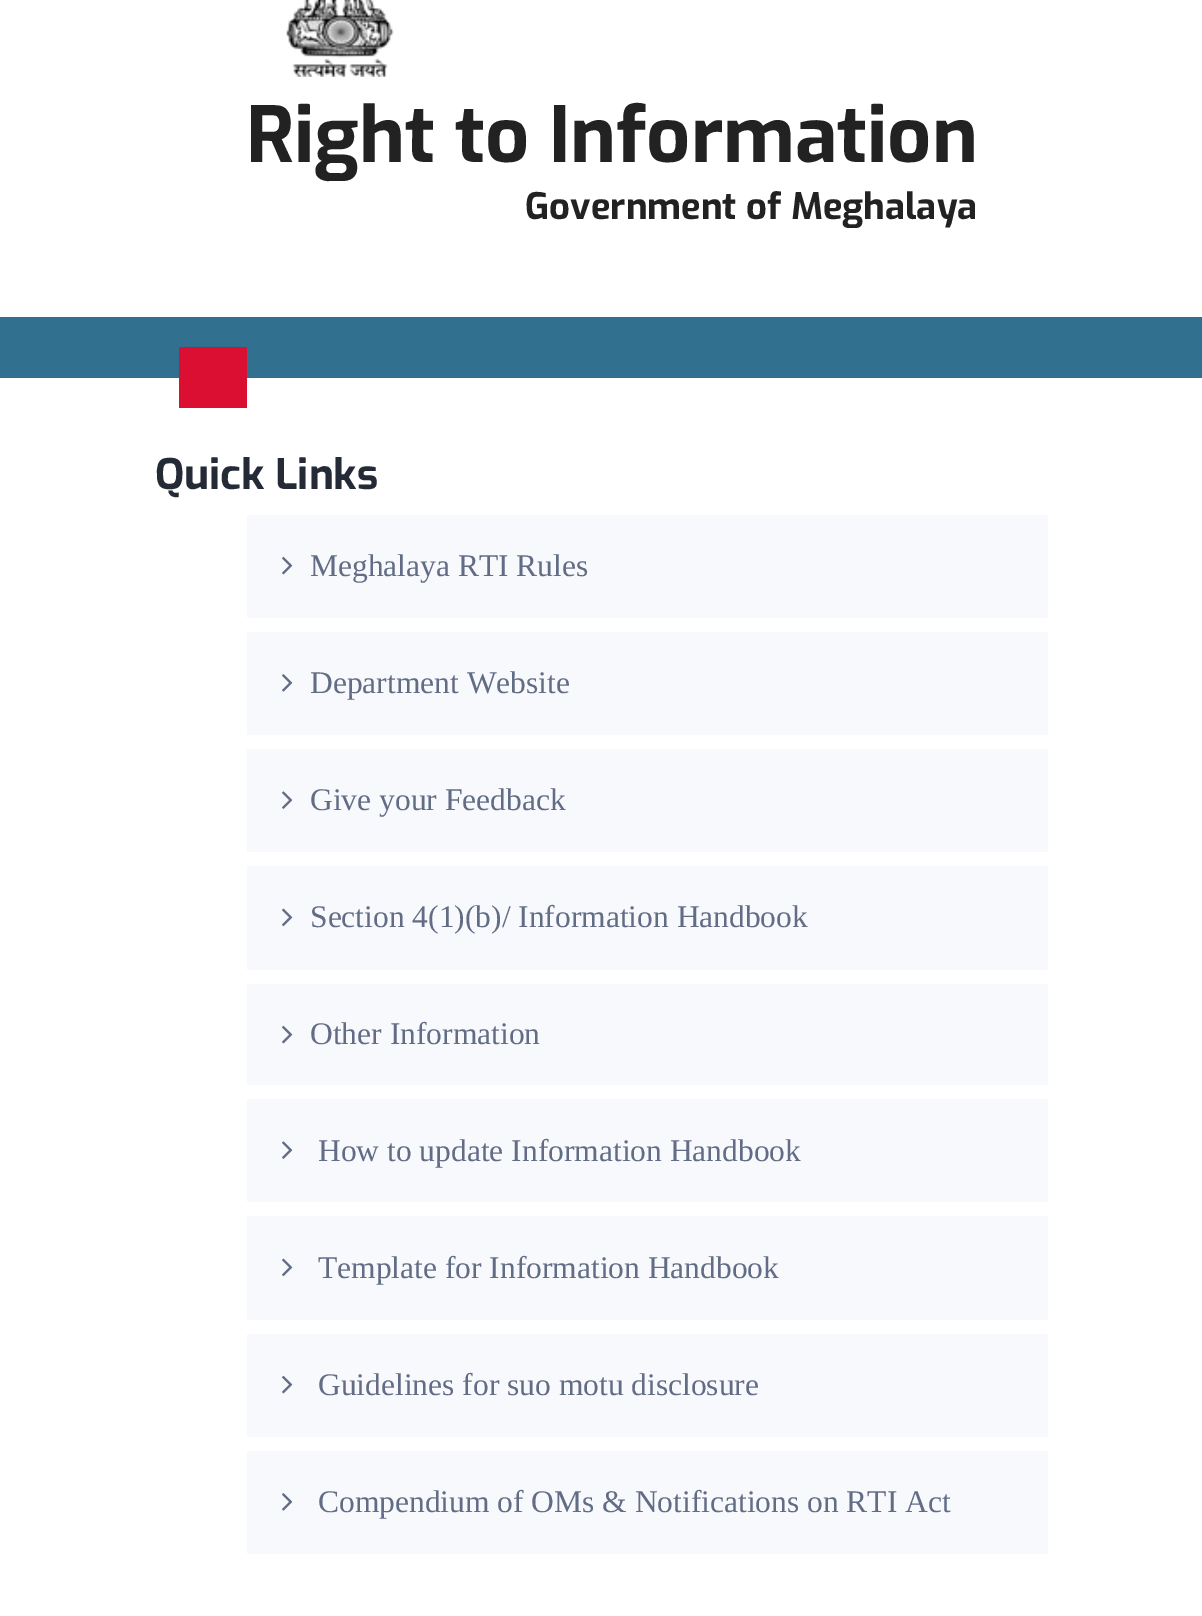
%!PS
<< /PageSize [1202 1616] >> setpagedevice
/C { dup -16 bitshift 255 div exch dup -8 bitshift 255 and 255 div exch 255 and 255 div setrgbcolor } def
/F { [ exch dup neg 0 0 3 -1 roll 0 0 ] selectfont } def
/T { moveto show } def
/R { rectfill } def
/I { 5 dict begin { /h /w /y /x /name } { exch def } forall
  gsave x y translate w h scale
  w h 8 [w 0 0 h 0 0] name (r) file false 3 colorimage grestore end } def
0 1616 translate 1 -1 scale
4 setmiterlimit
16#FFFFFF C
0 0 1202 1616 R
(1.rgb) 286 0 108 77 I
/Exo-Bold 77 F
16#222222 C
(Right to Information) 246 162 T
/Exo-Bold 36.4 F
(Government of Meghalaya) 525 219 T
16#31708E C
0 317 1202 61 R
16#DA0F32 C
179 347 68 61 R
/Exo-Bold 42 F
16#252A37 C
(Quick Links) 155 489 T
16#F7F9FD C
247 515 801 103 R
(2.rgb) 282 556 11 19 I
/LiberationSerif-Regular 31.5 F
16#626C84 C
(Meghalaya RTI Rules) 310 576 T
16#F7F9FD C
247 632 801 103 R
(3.rgb) 282 674 11 18 I
16#626C84 C
(Department Website) 310 693 T
16#F7F9FD C
247 749 801 103 R
(4.rgb) 282 791 11 18 I
16#626C84 C
(Give your Feedback) 310 810 T
16#F7F9FD C
247 866 801 104 R
(5.rgb) 282 908 11 19 I
16#626C84 C
(Section 4\(1\)\(b\)/ Information Handbook) 310 927 T
16#F7F9FD C
247 984 801 101 R
(2.rgb) 282 1025 11 19 I
16#626C84 C
(Other Information) 310 1044 T
16#F7F9FD C
247 1099 801 103 R
(4.rgb) 282 1141 11 18 I
16#626C84 C
(How to update Information Handbook) 318 1161 T
16#F7F9FD C
247 1216 801 104 R
(5.rgb) 282 1258 11 19 I
16#626C84 C
(Template for Information Handbook) 318 1278 T
16#F7F9FD C
247 1334 801 103 R
(2.rgb) 282 1375 11 19 I
16#626C84 C
(Guidelines for suo motu disclosure) 318 1395 T
16#F7F9FD C
247 1451 801 103 R
(3.rgb) 282 1493 11 18 I
16#626C84 C
(Compendium of OMs & Notifications on RTI Act) 318 1512 T
showpage
